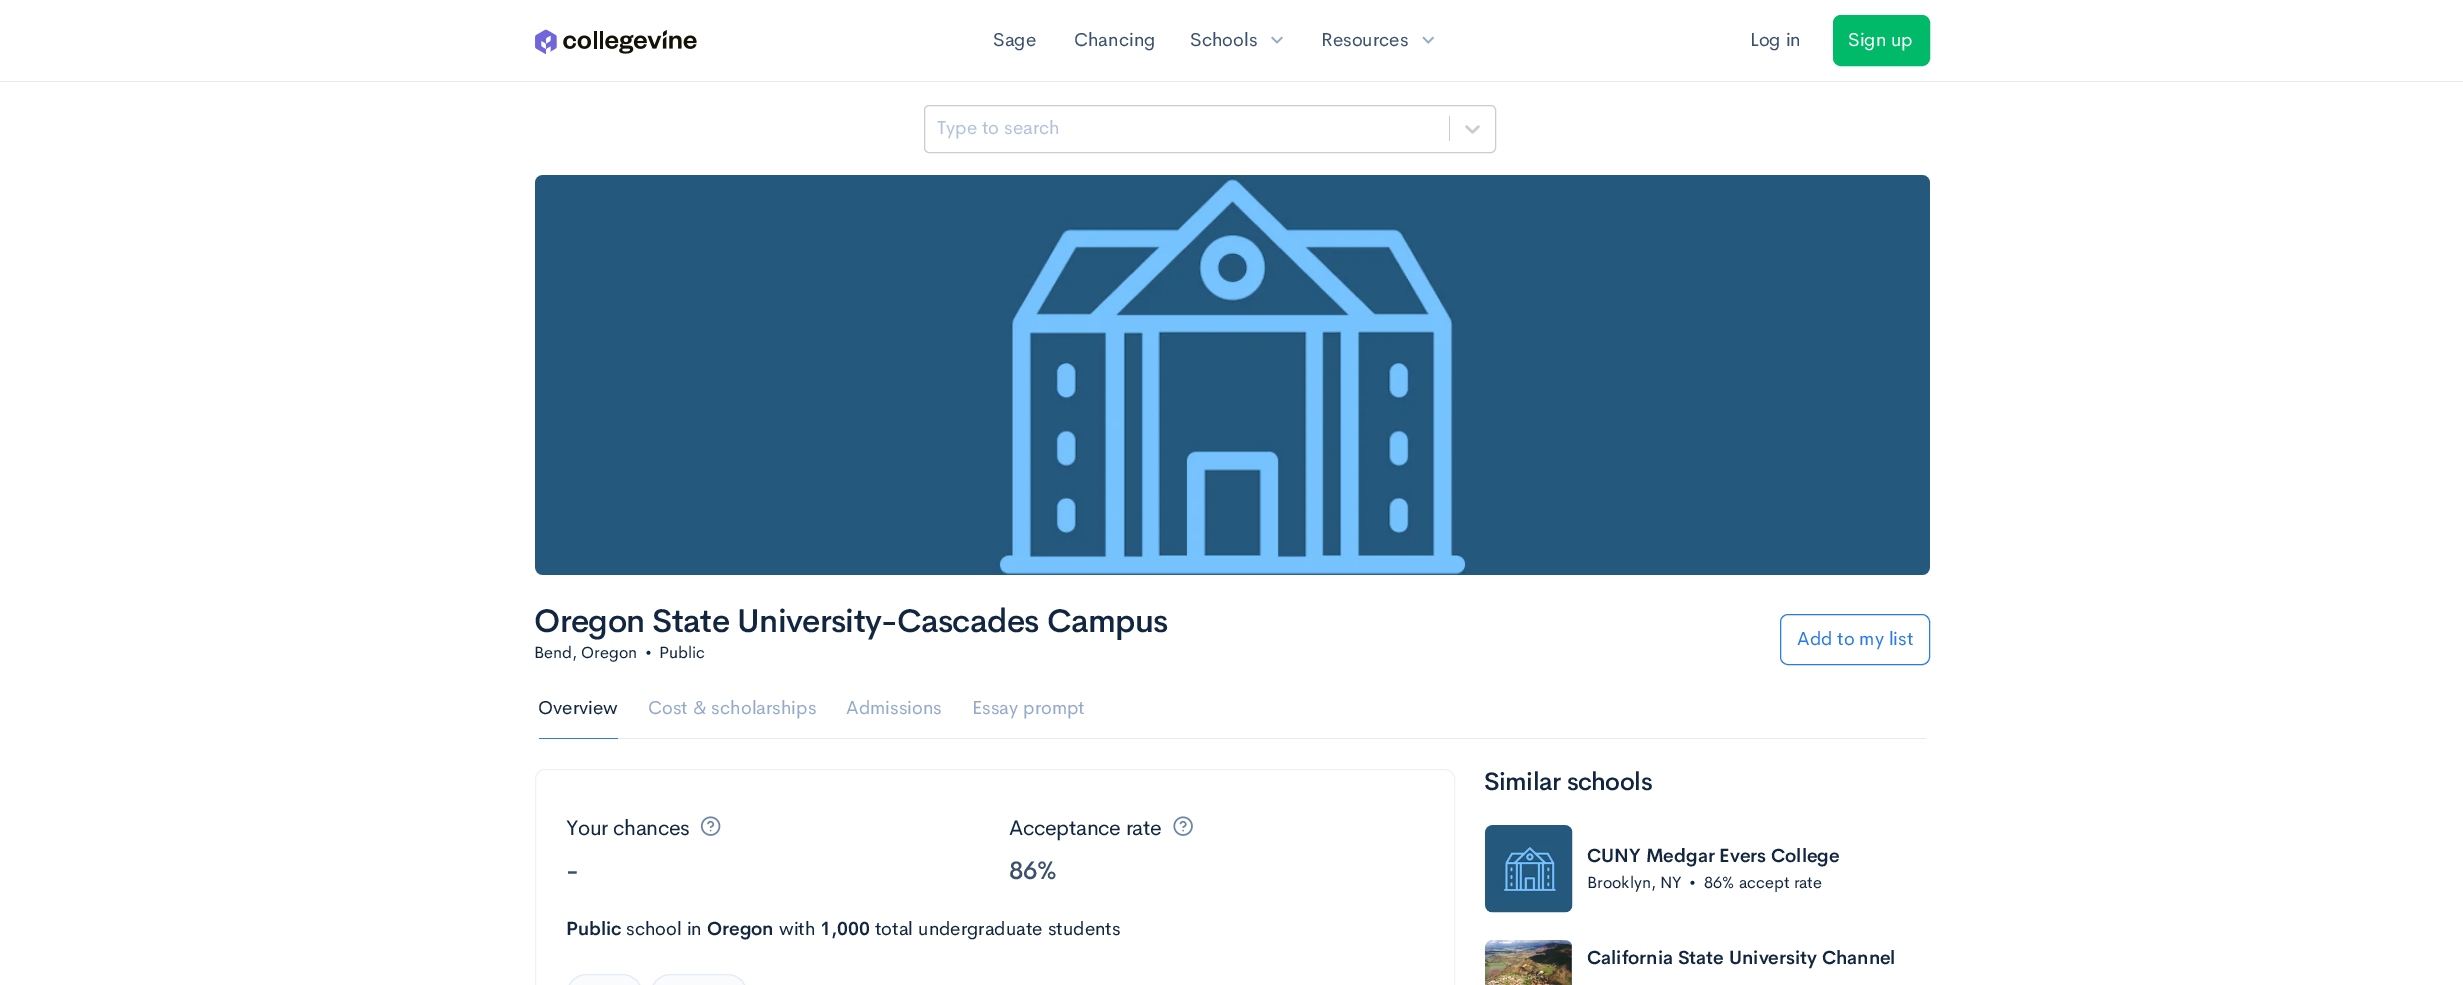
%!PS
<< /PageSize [2463 985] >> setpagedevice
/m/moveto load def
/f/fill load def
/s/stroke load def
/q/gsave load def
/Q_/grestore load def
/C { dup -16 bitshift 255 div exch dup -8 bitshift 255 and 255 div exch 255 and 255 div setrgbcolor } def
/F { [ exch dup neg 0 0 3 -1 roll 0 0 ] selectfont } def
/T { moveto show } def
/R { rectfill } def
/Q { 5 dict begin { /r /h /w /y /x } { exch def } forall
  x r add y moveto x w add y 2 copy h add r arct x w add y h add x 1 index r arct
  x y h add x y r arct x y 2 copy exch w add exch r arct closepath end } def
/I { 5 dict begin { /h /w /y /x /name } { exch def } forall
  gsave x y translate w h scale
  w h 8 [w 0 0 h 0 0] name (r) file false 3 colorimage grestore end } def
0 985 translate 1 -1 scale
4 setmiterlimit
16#FFFFFF C
0 0 2463 985 R
16#E3EBF6 C
0 81 2463 1 R
(1.rgb) 535 29 162 25 I
/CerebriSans-Regular 18.75 F
16#3B506C C
(Sage) 993 46 T
(Chancing) 1074 46 T
(Schools) 1190 46 T
(2.rgb) 1271 36 12 8 I
(Resources) 1321 46 T
(3.rgb) 1422 36 13 8 I
(Log in) 1750 46 T
16#00BA69 C
1833.5 15.5 96 50 7.5 Q q f Q_
s
16#FFFFFF C
(Sign up) 1848 46 T
16#CCCCCC C
924.5 105.5 571 47 4.5 Q s
16#B1C2D9 C
(Type to search) 937 134 T
16#CCCCCC C
1449 116 1 25 R
(4.rgb) 1465 125 15 9 I
(5.rgb) 535 175 1395 400 I
/CerebriSans-Medium 32.5 F
16#12263F C
534 632 m -.65 0 (Oregon State University-Cascades Campus) ashow
/CerebriSans-Regular 16.25 F
(Bend, Oregon) 534 658 T
(•) 645 658 T
(Public) 659 658 T
16#2C7BE5 C
1780.5 614.5 149 50 7.5 Q s
/CerebriSans-Regular 18.75 F
(Add to my list) 1797 645 T
16#E3EBF6 C
618 738 1308 1 R
16#2C7BE5 C
539 738 79 1 R
16#12263F C
(Overview) 538 714 T
16#95AAC9 C
(Cost & scholarships) 648 714 T
(Admissions) 846 714 T
(Essay prompt) 972 714 T
16#EDF2F9 C
535.5 769.5 919 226 9.5 Q s
/CerebriSans-Regular 21.25 F
16#12263F C
566 835 m -.4 0 (Your chances) ashow
(6.rgb) 700 816 21 20 I
/CerebriSans-Medium 25 F
16#3B506C C
566 879 m -.5 0 (-) ashow
/CerebriSans-Regular 21.25 F
16#12263F C
1009 835 m -.4 0 (Acceptance rate) ashow
(7.rgb) 1173 816 20 20 I
/CerebriSans-Medium 25 F
16#3B506C C
1009 879 m -.5 0 (86%) ashow
/CerebriSans-SemiBold 18.75 F
16#12263F C
(Public) 566 935 T
/CerebriSans-Regular 18.75 F
(school in) 626 935 T
/CerebriSans-SemiBold 18.75 F
(Oregon) 707 935 T
/CerebriSans-Regular 18.75 F
(with) 779 935 T
/CerebriSans-SemiBold 18.75 F
(1,000) 820 935 T
/CerebriSans-Regular 18.75 F
(total undergraduate students) 875 935 T
16#F9FBFD C
566.5 974.5 76 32 20 Q q f Q_
16#E3EBF6 C
s
16#F9FBFD C
650.5 974.5 97 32 20 Q q f Q_
16#E3EBF6 C
s
/CerebriSans-Medium 25 F
16#12263F C
1484 790 m -.5 0 (Similar schools) ashow
(8.rgb) 1485 825 88 88 I
/CerebriSans-SemiBold 18.75 F
(CUNY Medgar Evers College) 1587 862 T
/CerebriSans-Regular 16.25 F
(Brooklyn, NY) 1587 888 T
(•) 1689 888 T
(86% accept rate) 1704 888 T
(9.rgb) 1485 940 88 45 I
/CerebriSans-SemiBold 18.75 F
(California State University Channel) 1587 964 T
showpage
